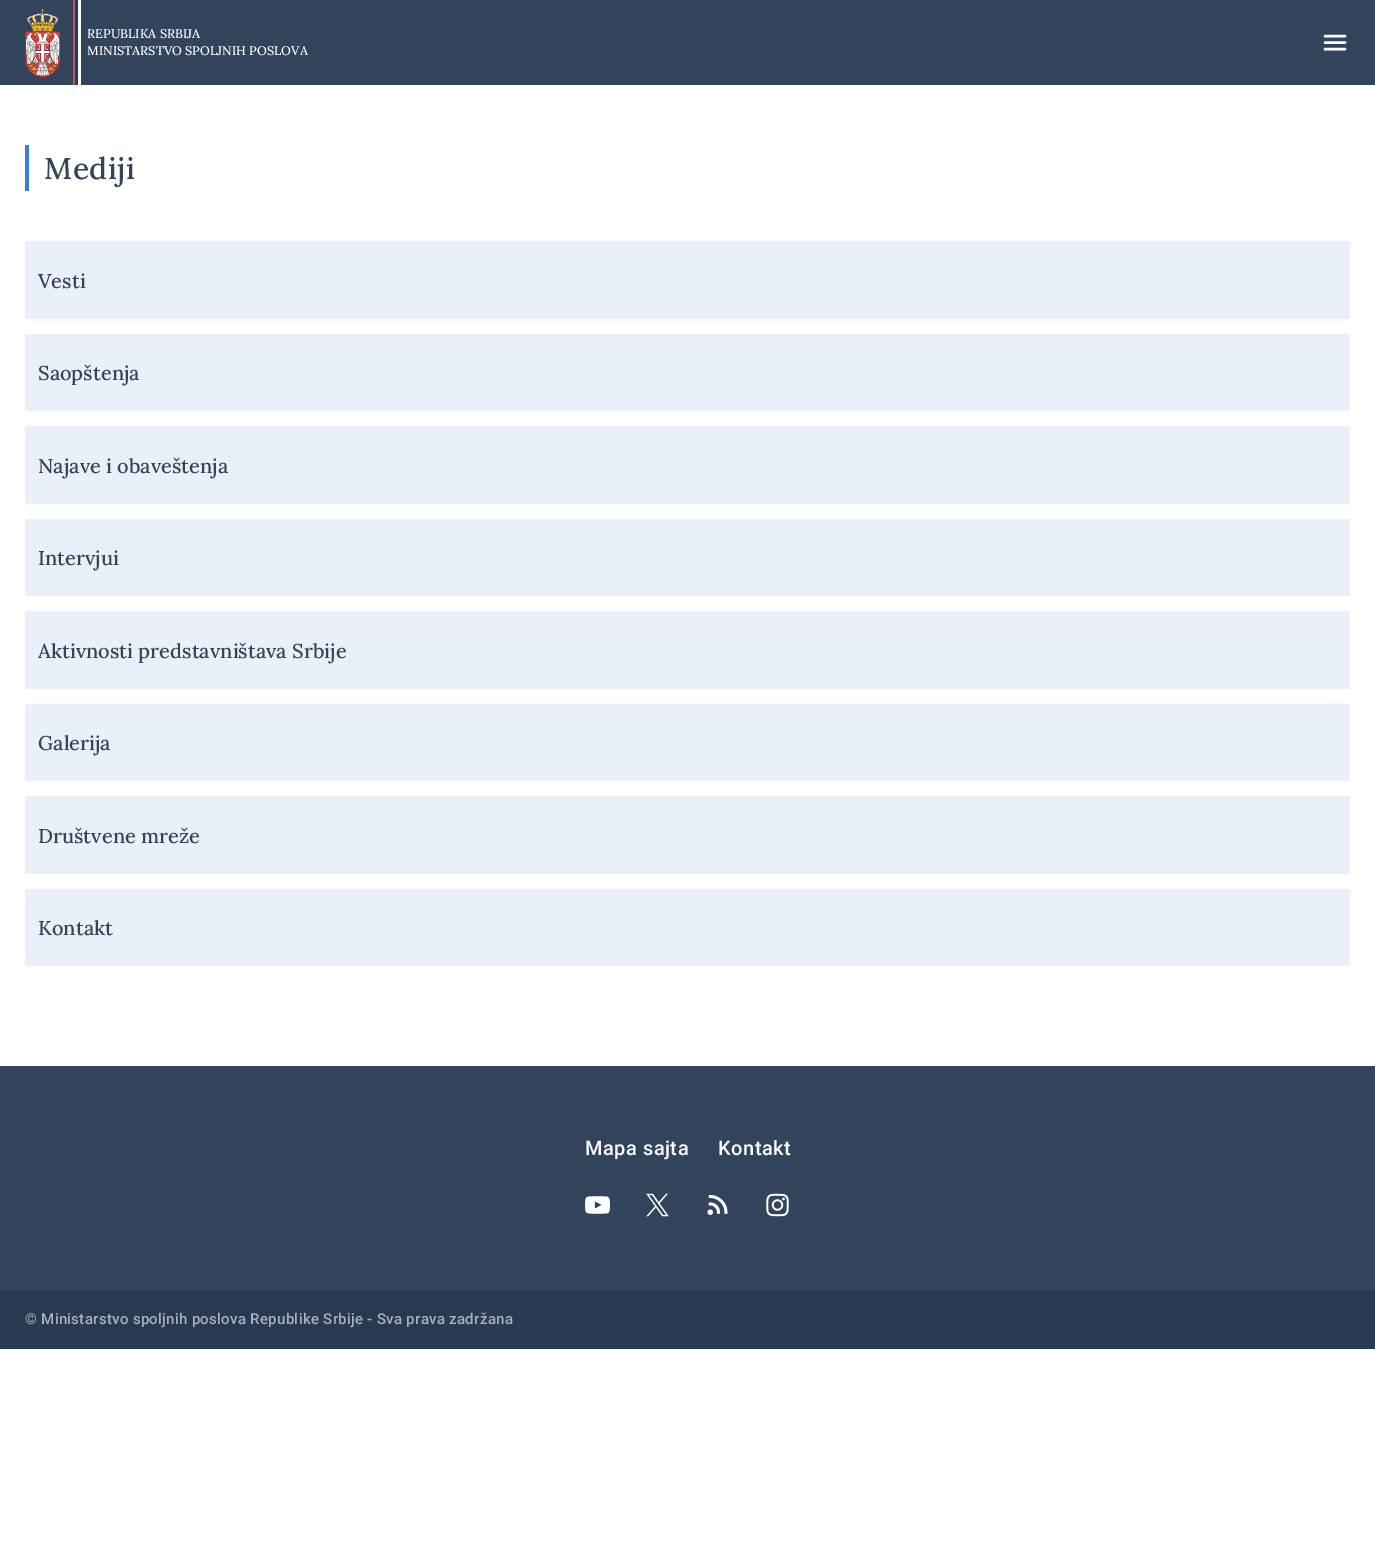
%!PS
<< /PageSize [1375 1567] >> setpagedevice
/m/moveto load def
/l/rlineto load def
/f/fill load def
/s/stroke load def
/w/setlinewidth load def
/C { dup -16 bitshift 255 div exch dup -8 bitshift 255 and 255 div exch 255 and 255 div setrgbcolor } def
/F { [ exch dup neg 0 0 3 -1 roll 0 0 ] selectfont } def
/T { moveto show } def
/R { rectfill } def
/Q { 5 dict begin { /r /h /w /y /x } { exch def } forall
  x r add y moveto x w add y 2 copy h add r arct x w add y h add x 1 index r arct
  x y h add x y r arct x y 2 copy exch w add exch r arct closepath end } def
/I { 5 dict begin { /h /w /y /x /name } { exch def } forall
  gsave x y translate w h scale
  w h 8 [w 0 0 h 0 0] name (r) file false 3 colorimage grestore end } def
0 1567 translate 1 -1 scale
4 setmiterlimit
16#FFFFFF C
0 0 1375 1567 R
16#32445C C
0 0 1375 85 R
(1.rgb) 25 8 35 70 I
16#DD4848 C
73 0 2 85 R
16#00498F C
75 0 3 85 R
16#FFFFFF C
78 0 3 85 R
/Lora-Medium 12.5 F
(REPUBLIKA SRBIJA) 87 38 T
(MINISTARSTVO SPOLJNIH POSLOVA) 87 55 T
2.5 w
1 setlinecap
1325 42.5 m 20 0 l 1325 36 m 20 0 l 1325 49 m 20 0 l s
16#367EDE C
25 145 4 46 R
/Lora-Medium 30 F
16#32445C C
44 179 m .5 0 (Mediji) ashow
16#E9F0F9 C
25 241 1325 78 2.5 Q f
/Lora-Medium 20 F
16#32445C C
(Vesti) 38 288 T
16#E9F0F9 C
25 334 1325 77 2.5 Q f
16#32445C C
(Saopštenja) 38 380 T
16#E9F0F9 C
25 426 1325 78 2.5 Q f
16#32445C C
(Najave i obaveštenja) 38 473 T
16#E9F0F9 C
25 519 1325 77 2.5 Q f
16#32445C C
(Intervjui) 38 565 T
16#E9F0F9 C
25 611 1325 78 2.5 Q f
16#32445C C
(Aktivnosti predstavništava Srbije) 38 658 T
16#E9F0F9 C
25 704 1325 77 2.5 Q f
16#32445C C
(Galerija) 38 750 T
16#E9F0F9 C
25 796 1325 78 2.5 Q f
16#32445C C
(Društvene mreže) 38 843 T
16#E9F0F9 C
25 889 1325 77 2.5 Q f
16#32445C C
(Kontakt) 38 935 T
0 1066 1375 224 R
/Roboto-Medium 20 F
16#FFFFFF C
585 1155 m .5 0 (Mapa sajta) ashow
718 1155 m .5 0 (Kontakt) ashow
(2.rgb) 585 1196 25 18 I
(3.rgb) 646 1193 23 24 I
(4.rgb) 707 1195 21 20 I
(5.rgb) 766 1193 23 24 I
16#283A52 C
0 1290 1375 59 R
/Roboto-Medium 15 F
16#A9B0BA C
25 1324 m .3 0 (© Ministarstvo spoljnih poslova Republike Srbije - Sva prava zadržana) ashow
showpage
